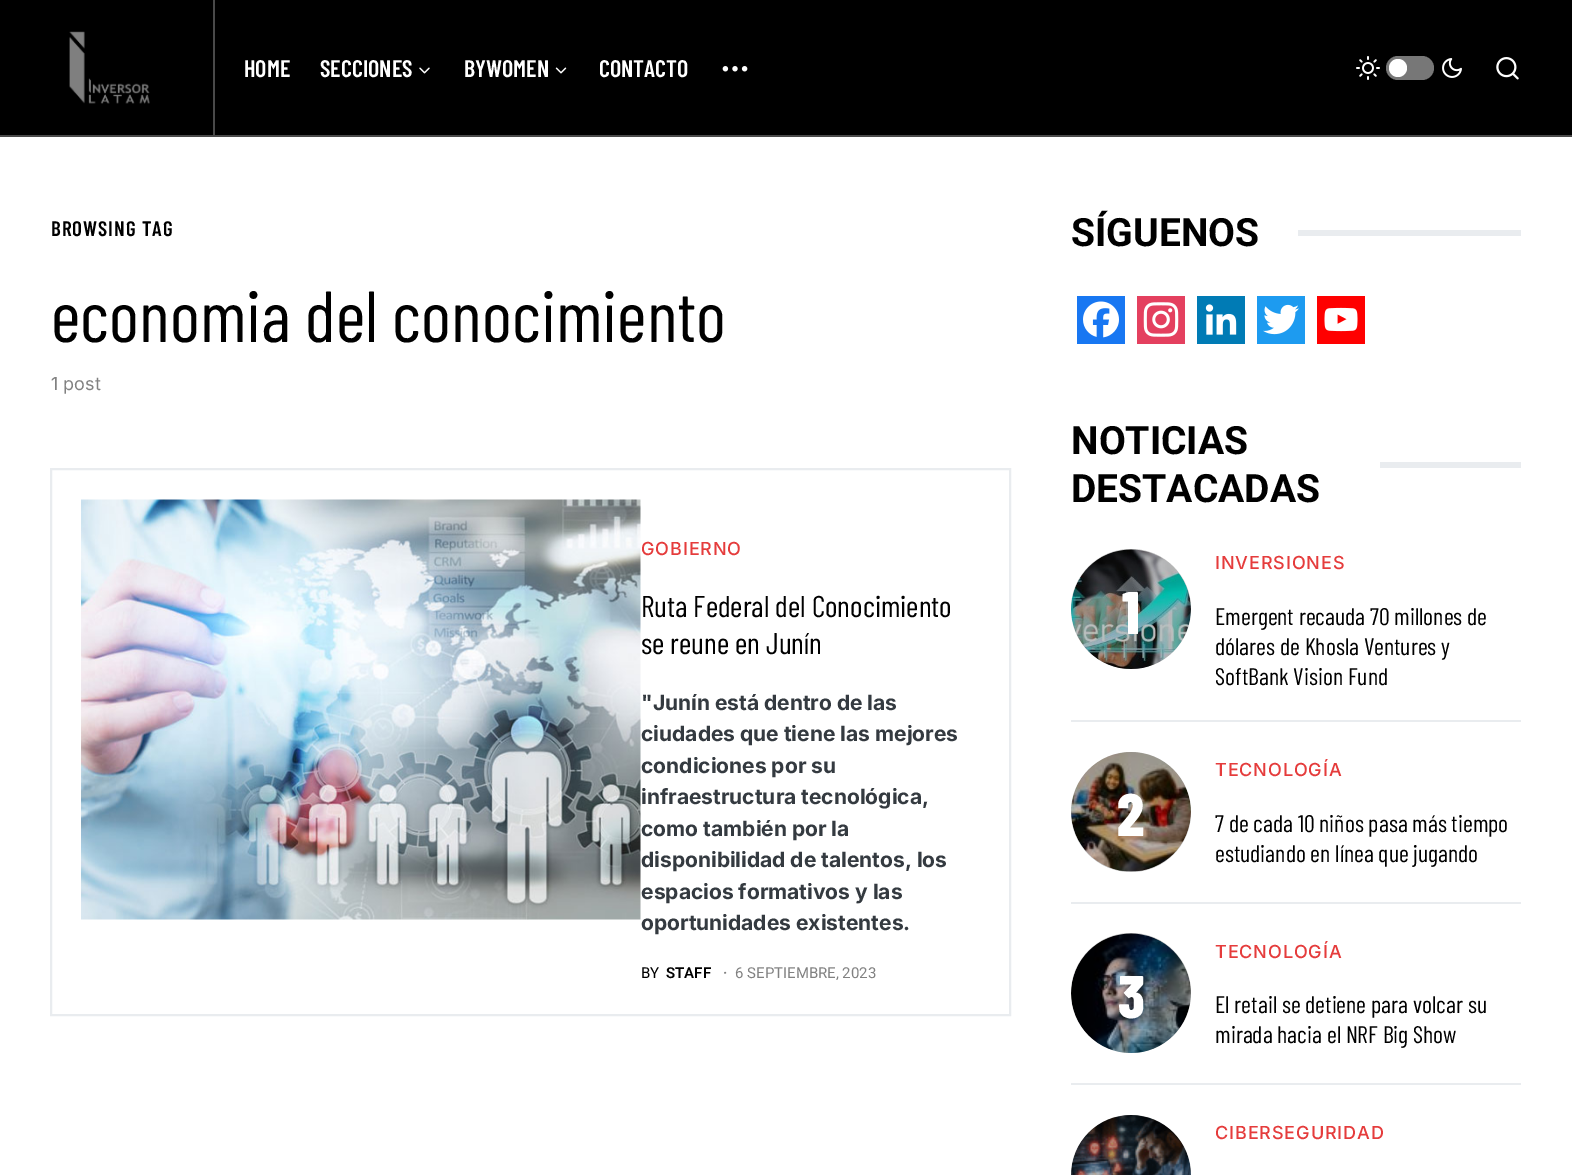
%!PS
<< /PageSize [1572 1175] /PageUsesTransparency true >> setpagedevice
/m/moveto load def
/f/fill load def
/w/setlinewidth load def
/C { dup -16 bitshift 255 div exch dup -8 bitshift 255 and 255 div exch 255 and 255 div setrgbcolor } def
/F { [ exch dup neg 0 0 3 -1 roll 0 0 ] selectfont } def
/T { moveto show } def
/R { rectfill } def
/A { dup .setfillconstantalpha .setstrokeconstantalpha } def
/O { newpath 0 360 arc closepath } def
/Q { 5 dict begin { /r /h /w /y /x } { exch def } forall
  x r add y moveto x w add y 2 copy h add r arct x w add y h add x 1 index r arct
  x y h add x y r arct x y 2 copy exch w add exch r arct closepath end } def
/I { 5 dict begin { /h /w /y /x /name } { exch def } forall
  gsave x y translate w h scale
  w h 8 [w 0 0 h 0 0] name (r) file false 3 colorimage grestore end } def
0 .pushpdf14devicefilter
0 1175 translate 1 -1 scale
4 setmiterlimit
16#FFFFFF C
0 0 1572 1175 R
16#000000 C
0 0 1572 135 R
16#494949 C
0 135 1572 2 R
(1.rgb) 69 31 81 73 I
213 0 2 135 R
/BarlowCondensed-SemiBold 24 F
16#FFFFFF C
(HOME) 244 77 T
(SECCIONES) 320 77 T
(2.rgb) 419 67 11 7 I
(BYWOMEN) 464 77 T
(3.rgb) 555 67 12 7 I
(CONTACTO) 599 77 T
(4.rgb) 722 66 26 6 I
(5.rgb) 1356 56 24 24 I
16#777777 C
1386 56 48 24 12 Q f
16#FFFFFF C
1398 68 9 O f
(6.rgb) 1442 58 20 20 I
(7.rgb) 1496 57 23 23 I
/BarlowCondensed-SemiBold 21 F
16#000000 C
51 236 m 1 0 (BROWSING TAG) ashow
/BarlowCondensed-Regular 72 F
(economia del conocimiento) 51 342 T
/Inter-Regular 18 F
16#818181 C
(1 post) 51 390 T
16#E9ECEF C
2 w
51 469 959 546 rectstroke
(8.rgb) 81 499 560 421 I
/Inter-Medium 18 F
16#E53C3C C
641 555 m .9 0 (GOBIERNO) ashow
/BarlowCondensed-Regular 30 F
16#000000 C
(Ruta Federal del Conocimiento) 641 617 T
(se reune en Junín) 641 654 T
/Inter-Bold 21 F
16#343A40 C
("Junín está dentro de las) 641 710 T
(ciudades que tiene las mejores) 641 741 T
(condiciones por su) 641 773 T
(infraestructura tecnológica,) 641 804 T
(como también por la) 641 836 T
(disponibilidad de talentos, los) 641 867 T
(espacios formativos y las) 641 899 T
(oportunidades existentes.) 641 930 T
/Roboto-Regular 15 F
16#000000 C
(BY) 641 978 T
/Roboto-SemiBold 15 F
(STAFF) 666 978 T
16#818181 C
(·) 723 978 T
/Roboto-Regular 15 F
(6 SEPTIEMBRE, 2023) 735 978 T
/Roboto-Bold 39 F
16#000000 C
(SÍGUENOS) 1071 246 T
16#E9ECEF C
1298 230 223 6 R
16#1877F2 C
1077 296 48 48 R
(9.rgb) 1083 301 36 37 I
16#E4405F C
1137 296 48 48 R
(10.rgb) 1143 302 36 35 I
16#007BB5 C
1197 296 48 48 R
(11.rgb) 1205 304 32 31 I
16#1D9BF0 C
1257 296 48 48 R
(12.rgb) 1263 304 36 31 I
16#FF0000 C
1317 296 48 48 R
(13.rgb) 1324 307 34 25 I
16#000000 C
(NOTICIAS) 1071 454 T
(DESTACADAS) 1071 502 T
16#E9ECEF C
1380 462 141 6 R
(14.rgb) 1071 549 120 120 I
0.25 A
16#000000 C
1131 609 60 O f
/BarlowCondensed-ExtraBold 60 F
1 A
16#FFFFFF C
(1) 1122 634 T
/Inter-Medium 18 F
16#E53C3C C
1215 569 m .9 0 (INVERSIONES) ashow
/BarlowCondensed-Regular 24 F
16#000000 C
(Emergent recauda 70 millones de) 1215 625 T
(dólares de Khosla Ventures y) 1215 655 T
(SoftBank Vision Fund) 1215 685 T
16#E9ECEF C
1071 720 450 2 R
(15.rgb) 1071 752 120 120 I
0.25 A
16#000000 C
1131 812 60 O f
/BarlowCondensed-ExtraBold 60 F
1 A
16#FFFFFF C
(2) 1117 836 T
/Inter-Medium 18 F
16#E53C3C C
1215 776 m .9 0 (TECNOLOGÍA) ashow
/BarlowCondensed-Regular 24 F
16#000000 C
(7 de cada 10 niños pasa más tiempo) 1215 832 T
(estudiando en línea que jugando) 1215 862 T
16#E9ECEF C
1071 902 450 2 R
(16.rgb) 1071 933 120 120 I
0.25 A
16#000000 C
1131 993 60 O f
/BarlowCondensed-ExtraBold 60 F
1 A
16#FFFFFF C
(3) 1118 1018 T
/Inter-Medium 18 F
16#E53C3C C
1215 958 m .9 0 (TECNOLOGÍA) ashow
/BarlowCondensed-Regular 24 F
16#000000 C
(El retail se detiene para volcar su) 1215 1013 T
(mirada hacia el NRF Big Show) 1215 1043 T
16#E9ECEF C
1071 1083 450 2 R
(17.rgb) 1071 1115 120 60 I
0.25 A
16#000000 C
1131 1175 60 O f
/Inter-Medium 18 F
1 A
16#E53C3C C
1215 1139 m .9 0 (CIBERSEGURIDAD) ashow
.poppdf14devicefilter showpage
